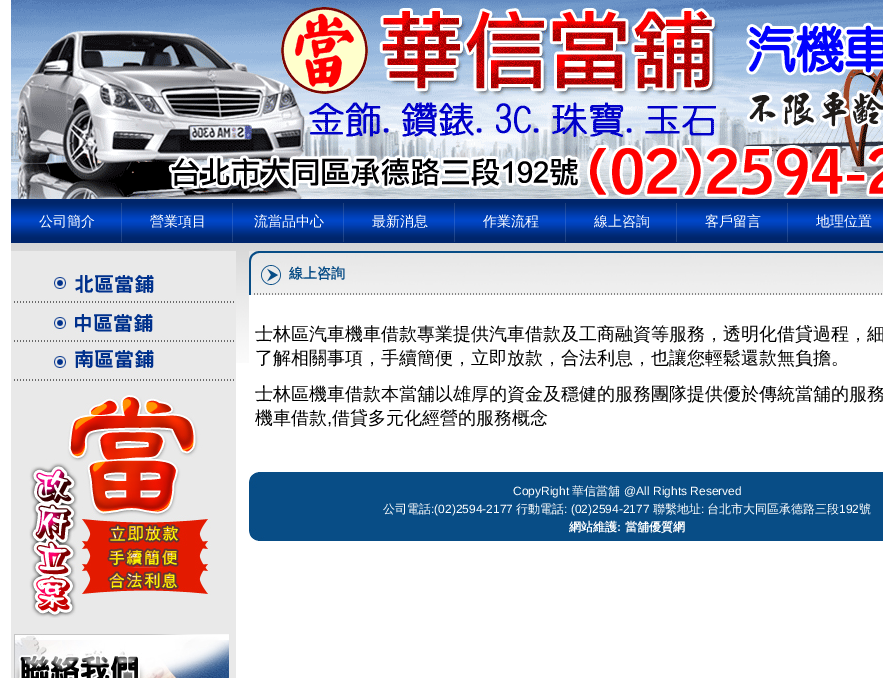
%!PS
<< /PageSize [883 678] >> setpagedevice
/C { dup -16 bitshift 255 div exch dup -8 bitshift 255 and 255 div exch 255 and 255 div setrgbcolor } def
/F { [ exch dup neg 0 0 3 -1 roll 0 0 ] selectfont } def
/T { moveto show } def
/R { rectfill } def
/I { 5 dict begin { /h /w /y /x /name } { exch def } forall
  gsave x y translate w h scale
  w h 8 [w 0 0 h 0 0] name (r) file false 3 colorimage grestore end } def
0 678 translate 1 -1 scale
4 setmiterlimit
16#FFFFFF C
0 0 883 678 R
(1.rgb) 11 0 872 199 I
(2.rgb) 11 199 872 44 I
(3.rgb) 121 203 1 40 I
/WenQuanYiZenHei-Medium 14 F
(公司簡介) 39 226 T
(3.rgb) 232 203 1 40 I
(營業項目) 150 226 T
(3.rgb) 343 203 1 40 I
(流當品中心) 254 226 T
(3.rgb) 454 203 1 40 I
(最新消息) 372 226 T
(3.rgb) 565 203 1 40 I
(作業流程) 483 226 T
(3.rgb) 676 203 1 40 I
(線上咨詢) 594 226 T
(3.rgb) 787 203 1 40 I
(客戶留言) 705 226 T
(地理位置) 816 226 T
(4.rgb) 11 243 872 120 I
16#E9E9E9 C
11 251 225 427 R
(5.rgb) 14 275 220 28 I
(6.rgb) 14 312 220 30 I
(7.rgb) 14 350 220 31 I
(8.rgb) 29 395 182 223 I
(9.rgb) 14 634 215 44 I
(10.rgb) 251 295 632 167 I
(11.rgb) 249 251 634 44 I
/WenQuanYiZenHei-Bold 14 F
16#084D86 C
(線上咨詢) 289 278 T
16#FFFFFF C
249 295 2 68 R
/WenQuanYiZenHei-Medium 18 F
16#000000 C
(士林區汽車機車借款專業提供汽車借款及工商融資等服務，透明化借貸過程，細) 255 340 T
(了解相關事項，手續簡便，立即放款，合法利息，也讓您輕鬆還款無負擔。) 255 364 T
(士林區機車借款本當舖以雄厚的資金及穩健的服務團隊提供優於傳統當舖的服務) 255 400 T
(機車借款) 255 424 T
/LiberationSans-Regular 18 F
(,) 327 424 T
/WenQuanYiZenHei-Medium 18 F
(借貸多元化經營的服務概念) 332 424 T
(12.rgb) 249 472 634 69 I
/LiberationSans-Regular 12 F
16#FFFFFF C
(CopyRight) 513 495 T
/WenQuanYiZenHei-Medium 12 F
(華信當舖) 572 495 T
/LiberationSans-Regular 12 F
(@All Rights Reserved) 624 495 T
/WenQuanYiZenHei-Medium 12 F
(公司電話) 383 513 T
/LiberationSans-Regular 12 F
(:\(02\)2594-2177) 431 513 T
/WenQuanYiZenHei-Medium 12 F
(行動電話) 516 513 T
/LiberationSans-Regular 12 F
(: \(02\)2594-2177) 564 513 T
/WenQuanYiZenHei-Medium 12 F
(聯繫地址) 653 513 T
/LiberationSans-Regular 12 F
(:) 701 513 T
/WenQuanYiZenHei-Medium 12 F
(台北市大同區承德路三段) 707 513 T
/LiberationSans-Regular 12 F
(192) 839 513 T
/WenQuanYiZenHei-Medium 12 F
(號) 859 513 T
/WenQuanYiZenHei-Bold 12 F
(網站維護) 569 531 T
/LiberationSans-Bold 12 F
(:) 617 531 T
/WenQuanYiZenHei-Bold 12 F
(當舖優質網) 625 531 T
showpage
